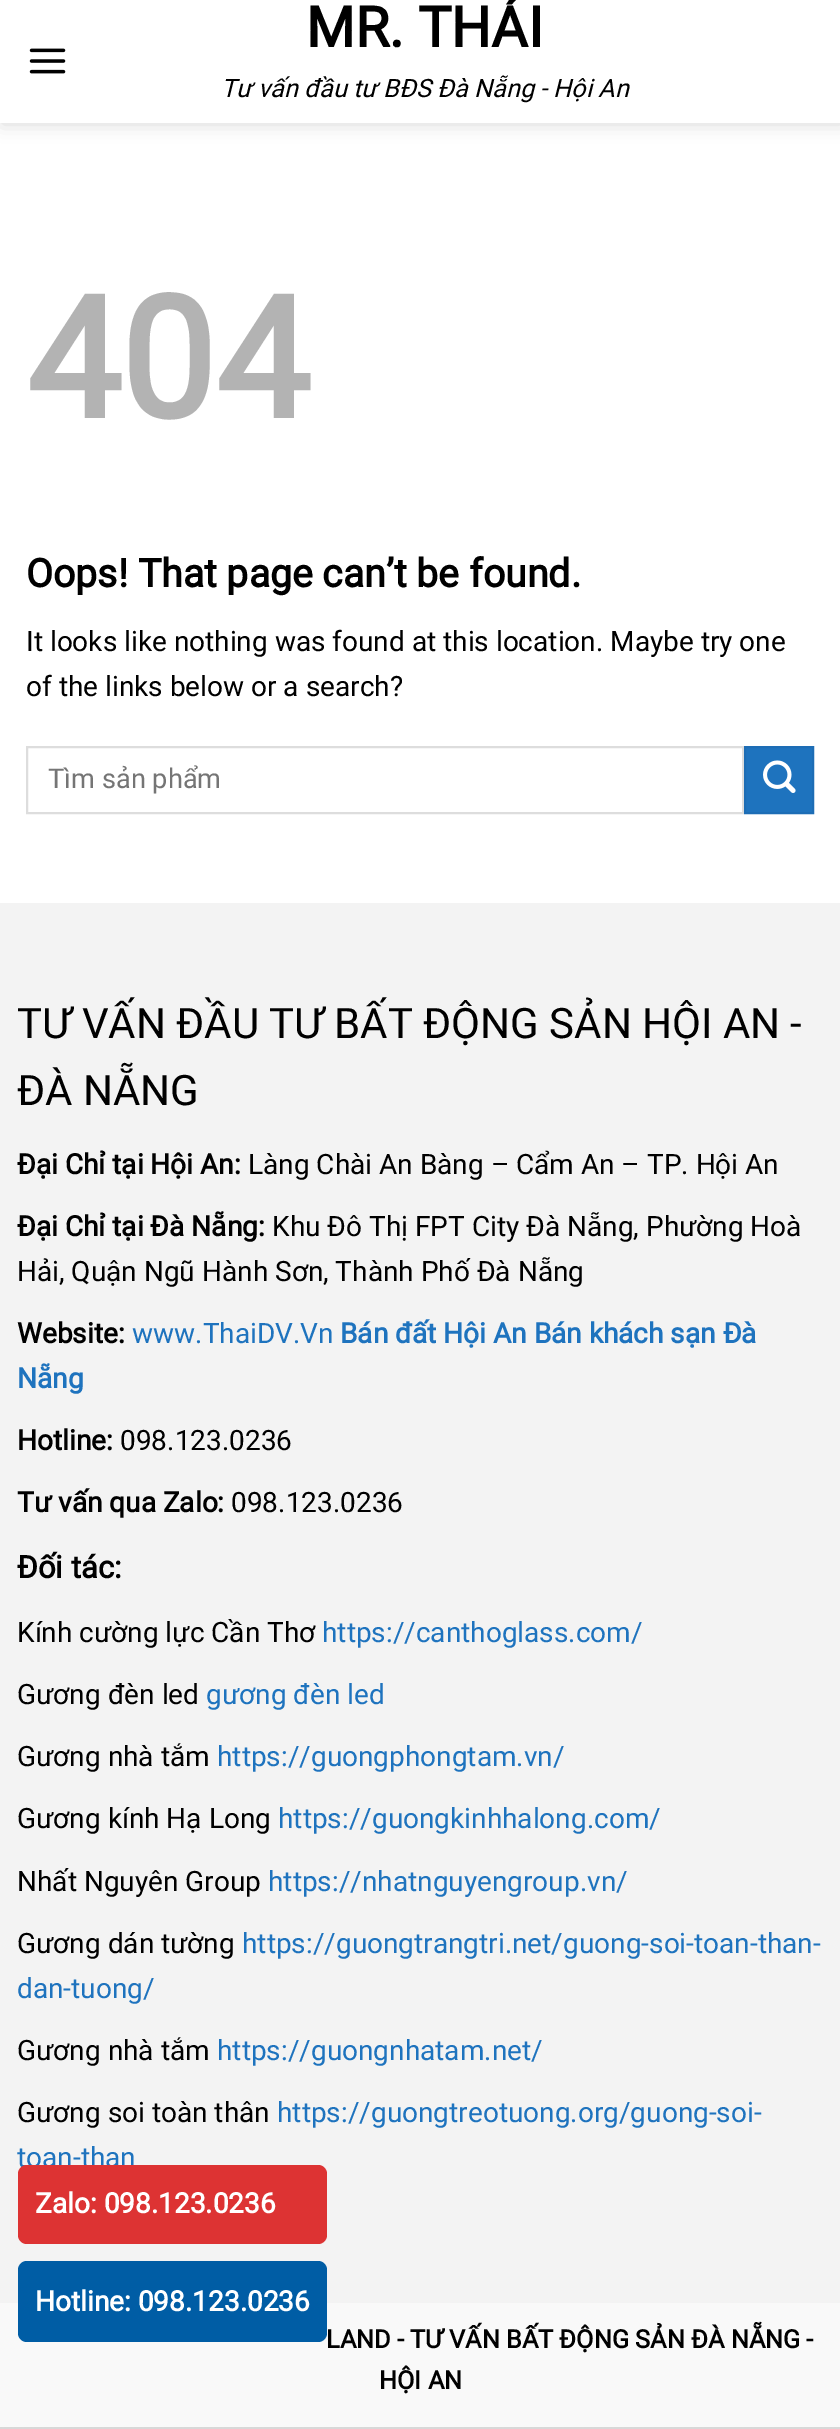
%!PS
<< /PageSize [840 2429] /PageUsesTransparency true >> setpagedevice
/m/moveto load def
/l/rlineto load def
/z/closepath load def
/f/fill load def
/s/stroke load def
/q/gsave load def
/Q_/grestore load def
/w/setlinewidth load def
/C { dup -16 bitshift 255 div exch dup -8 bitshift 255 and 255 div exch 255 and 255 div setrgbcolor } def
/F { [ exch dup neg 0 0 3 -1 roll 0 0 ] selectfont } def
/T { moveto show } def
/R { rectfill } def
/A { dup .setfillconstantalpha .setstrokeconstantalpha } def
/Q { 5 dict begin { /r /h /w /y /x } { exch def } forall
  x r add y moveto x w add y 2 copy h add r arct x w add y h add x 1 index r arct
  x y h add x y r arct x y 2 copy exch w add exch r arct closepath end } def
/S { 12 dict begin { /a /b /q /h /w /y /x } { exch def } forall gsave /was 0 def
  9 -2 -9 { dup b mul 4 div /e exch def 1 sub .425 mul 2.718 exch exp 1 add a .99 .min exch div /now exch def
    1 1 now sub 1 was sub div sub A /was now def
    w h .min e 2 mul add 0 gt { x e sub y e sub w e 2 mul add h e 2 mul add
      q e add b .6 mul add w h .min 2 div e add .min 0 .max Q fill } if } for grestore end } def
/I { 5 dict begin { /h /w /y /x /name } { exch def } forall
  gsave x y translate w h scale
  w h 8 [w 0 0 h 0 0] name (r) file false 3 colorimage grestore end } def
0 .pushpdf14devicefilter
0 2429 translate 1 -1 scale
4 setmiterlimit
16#D8D8D8 C
0 0 840 2429 R
16#FFFFFF C
0 123 840 780 R
16#000000 C
2 2 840 122 0 9 .15 S
16#FFFFFF C
0 0 840 123 R
(1.rgb) 29 48 37 26 I
/Roboto-Bold 56 F
16#000000 C
(MR. THÁI) 306 47 T
/Roboto-Italic 25.25 F
(Tư vấn đầu tư BĐS Đà Nẵng - Hội An) 221 97 T
/Roboto-Bold 168 F
16#B3B3B3 C
(404) 26 418 T
/Roboto-Bold 39.25 F
16#000000 C
(Oops! That page can’t be found.) 26 587 T
/Roboto-Regular 28 F
(It looks like nothing was found at this location. Maybe try one) 26 651 T
(of the links below or a search?) 26 696 T
16#DDDDDD C
2 w
27 747 716 66 rectstroke
/Roboto-Regular 27.25 F
16#757575 C
(Tìm sản phẩm) 48 788 T
16#1E73BE C
745 747 m 68 0 l 0 66 l -68 0 l z q f Q_
16#1D6DB5 C
s
(2.rgb) 763 760 33 33 I
16#F3F3F3 C
0 903 840 1400 R
/Roboto-Regular 42 F
16#000000 C
(TƯ VẤN ĐẦU TƯ BẤT ĐỘNG SẢN HỘI AN -) 17 1038 T
(ĐÀ NẴNG) 17 1105 T
/Roboto-Bold 28 F
(Đại Chỉ tại Hội An:) 17 1174 T
/Roboto-Regular 28 F
(Làng Chài An Bàng – Cẩm An – TP. Hội An) 248 1174 T
/Roboto-Bold 28 F
(Đại Chỉ tại Đà Nẵng:) 17 1236 T
/Roboto-Regular 28 F
(Khu Đô Thị FPT City Đà Nẵng, Phường Hoà) 272 1236 T
(Hải, Quận Ngũ Hành Sơn, Thành Phố Đà Nẵng) 17 1281 T
/Roboto-Bold 28 F
(Website:) 17 1343 T
/Roboto-Regular 28 F
16#1E73BE C
(www.ThaiDV.Vn) 132 1343 T
/Roboto-Bold 28 F
(Bán đất Hội An Bán khách sạn Đà) 340 1343 T
(Nẵng) 17 1388 T
16#000000 C
(Hotline:) 17 1450 T
/Roboto-Regular 28 F
(098.123.0236) 120 1450 T
/Roboto-Bold 28 F
(Tư vấn qua Zalo:) 17 1512 T
/Roboto-Regular 28 F
(098.123.0236) 231 1512 T
/Roboto-Bold 31 F
(Đối tác:) 17 1578 T
/Roboto-Regular 28 F
(Kính cường lực Cần Thơ) 17 1642 T
16#1E73BE C
(https://canthoglass.com/) 322 1642 T
16#000000 C
(Gương đèn led) 17 1704 T
16#1E73BE C
(gương đèn led) 206 1704 T
16#000000 C
(Gương nhà tắm) 17 1766 T
16#1E73BE C
(https://guongphongtam.vn/) 217 1766 T
16#000000 C
(Gương kính Hạ Long) 17 1828 T
16#1E73BE C
(https://guongkinhhalong.com/) 278 1828 T
16#000000 C
(Nhất Nguyên Group) 17 1891 T
16#1E73BE C
(https://nhatnguyengroup.vn/) 268 1891 T
16#000000 C
(Gương dán tường) 17 1953 T
16#1E73BE C
(https://guongtrangtri.net/guong-soi-toan-than-) 242 1953 T
(dan-tuong/) 17 1998 T
16#000000 C
(Gương nhà tắm) 17 2060 T
16#1E73BE C
(https://guongnhatam.net/) 217 2060 T
16#000000 C
(Gương soi toàn thân) 17 2122 T
16#1E73BE C
(https://guongtreotuong.org/guong-soi-) 277 2122 T
(toan-than) 17 2167 T
16#F9F9F9 C
0 2303 840 124 R
/Roboto-Bold 25.25 F
16#000000 C
(LAND - TƯ VẤN BẤT ĐỘNG SẢN ĐÀ NẴNG -) 326 2348 T
(HỘI AN) 379 2389 T
16#DD3333 C
18 2165 309 79 9 Q f
/Roboto-Bold 28 F
16#FFFFFF C
(Zalo: 098.123.0236) 35 2213 T
16#005DA5 C
18 2261 309 81 9 Q f
16#FFFFFF C
(Hotline: 098.123.0236) 35 2311 T
.poppdf14devicefilter showpage
